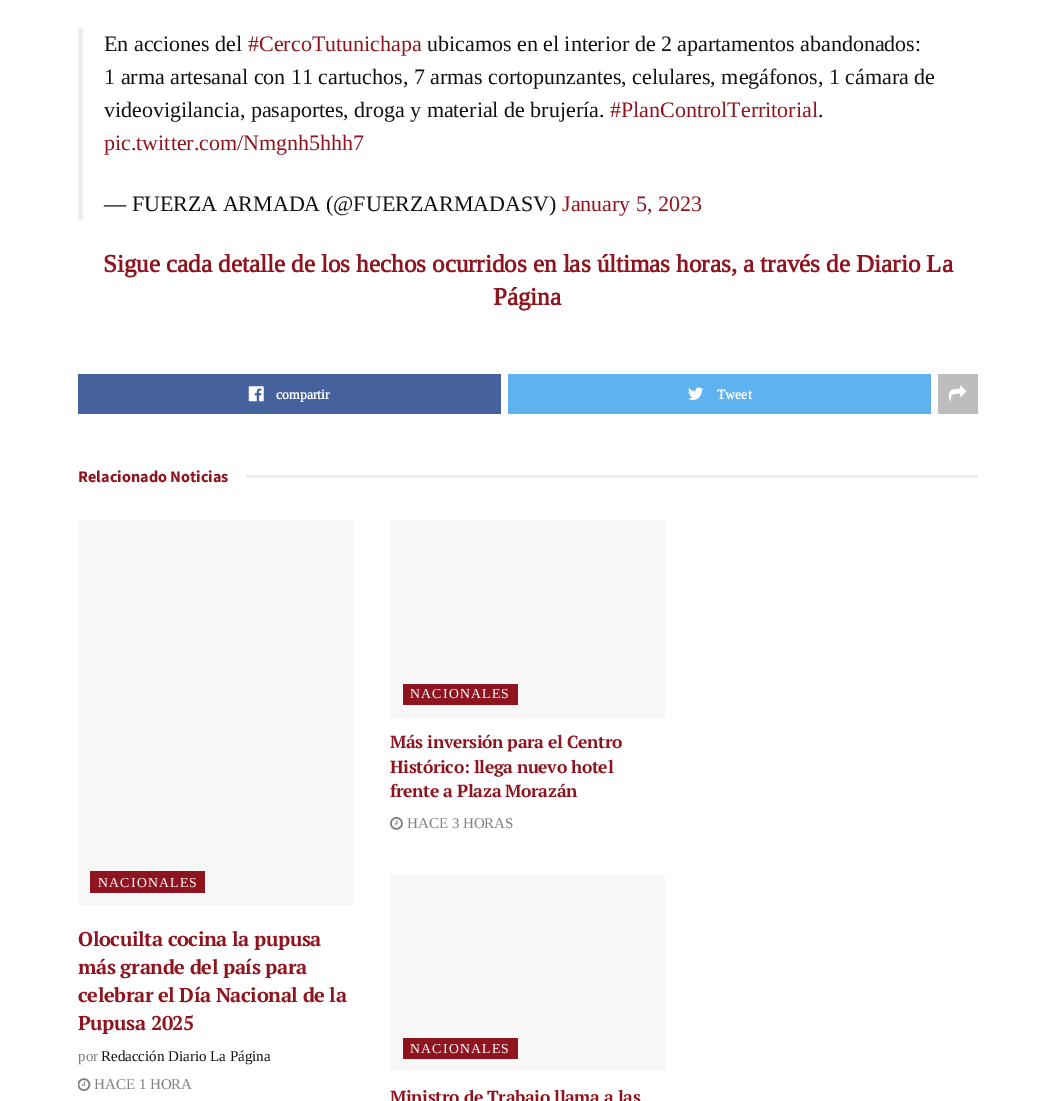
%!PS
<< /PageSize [1054 1101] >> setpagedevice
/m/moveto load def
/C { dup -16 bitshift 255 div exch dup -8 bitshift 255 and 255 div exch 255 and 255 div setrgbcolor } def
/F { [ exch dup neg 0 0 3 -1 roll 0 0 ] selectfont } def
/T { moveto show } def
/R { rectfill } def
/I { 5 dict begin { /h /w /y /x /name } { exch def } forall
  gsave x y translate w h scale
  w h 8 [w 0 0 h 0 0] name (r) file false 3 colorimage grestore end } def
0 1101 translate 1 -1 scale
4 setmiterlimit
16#FFFFFF C
0 0 1054 1101 R
16#EEEEEE C
78 28 5 192 R
/Tinos-Regular 22 F
16#111111 C
(En acciones del) 104 51 T
16#8E151F C
(#CercoTutunichapa) 248 51 T
16#111111 C
(ubicamos en el interior de 2 apartamentos abandonados:) 427 51 T
(1 arma artesanal con 11 cartuchos, 7 armas cortopunzantes, celulares, megáfonos, 1 cámara de) 104 84 T
(videovigilancia, pasaportes, droga y material de brujería.) 104 117 T
16#8E151F C
(#PlanControlTerritorial) 610 117 T
16#111111 C
(.) 818 117 T
16#8E151F C
(pic.twitter.com/Nmgnh5hhh7) 104 150 T
16#111111 C
(— FUERZA ARMADA \(@FUERZARMADASV\)) 104 211 T
16#8E151F C
(January 5, 2023) 562 211 T
/Tinos-Bold 25 F
(Sigue cada detalle de los hechos ocurridos en las últimas horas, a través de Diario La) 103 272 T
(Página) 493 305 T
16#45629F C
78 374 423 40 R
(1.rgb) 248 386 16 16 I
/Tinos-Bold 13.75 F
16#FFFFFF C
(compartir) 276 399 T
16#5EB2EF C
508 374 423 40 R
(2.rgb) 688 387 16 13 I
16#FFFFFF C
(Tweet) 717 399 T
16#BDBDBD C
938 374 40 40 R
(3.rgb) 948 385 19 17 I
/SourceSansPro-Bold 16.25 F
16#8E151F C
(Relacionado Noticias) 78 482 T
16#EEEEEE C
246 475 732 3 R
16#F7F7F7 C
78 520 275 385 R
16#8E151F C
90 871 115 22 R
/Tinos-Regular 13.75 F
16#FFFFFF C
98 887 m 1.25 0 (NACIONALES) ashow
/PTSerif-Bold 20 F
16#8E151F C
78 946 m -.4 0 (Olocuilta cocina la pupusa) ashow
78 974 m -.4 0 (más grande del país para) ashow
78 1002 m -.4 0 (celebrar el Día Nacional de la) ashow
78 1030 m -.4 0 (Pupusa 2025) ashow
/Tinos-Regular 15 F
16#808080 C
(por) 78 1061 T
16#111111 C
(Redacción Diario La Página) 101 1061 T
(4.rgb) 78 1078 13 13 I
16#808080 C
(HACE 1 HORA) 94 1089 T
16#F7F7F7 C
390 520 275 198 R
16#8E151F C
403 684 115 21 R
/Tinos-Regular 13.75 F
16#FFFFFF C
410 698 m 1.25 0 (NACIONALES) ashow
/PTSerif-Bold 17.5 F
16#8E151F C
390 748 m -.35 0 (Más inversión para el Centro) ashow
390 773 m -.35 0 (Histórico: llega nuevo hotel) ashow
390 797 m -.35 0 (frente a Plaza Morazán) ashow
(5.rgb) 390 817 13 13 I
/Tinos-Regular 15 F
16#808080 C
(HACE 3 HORAS) 407 828 T
16#F7F7F7 C
390 875 275 196 R
16#8E151F C
403 1038 115 21 R
/Tinos-Regular 13.75 F
16#FFFFFF C
410 1053 m 1.25 0 (NACIONALES) ashow
/PTSerif-Bold 17.5 F
16#8E151F C
390 1103 m -.35 0 (Ministro de Trabajo llama a las) ashow
showpage
